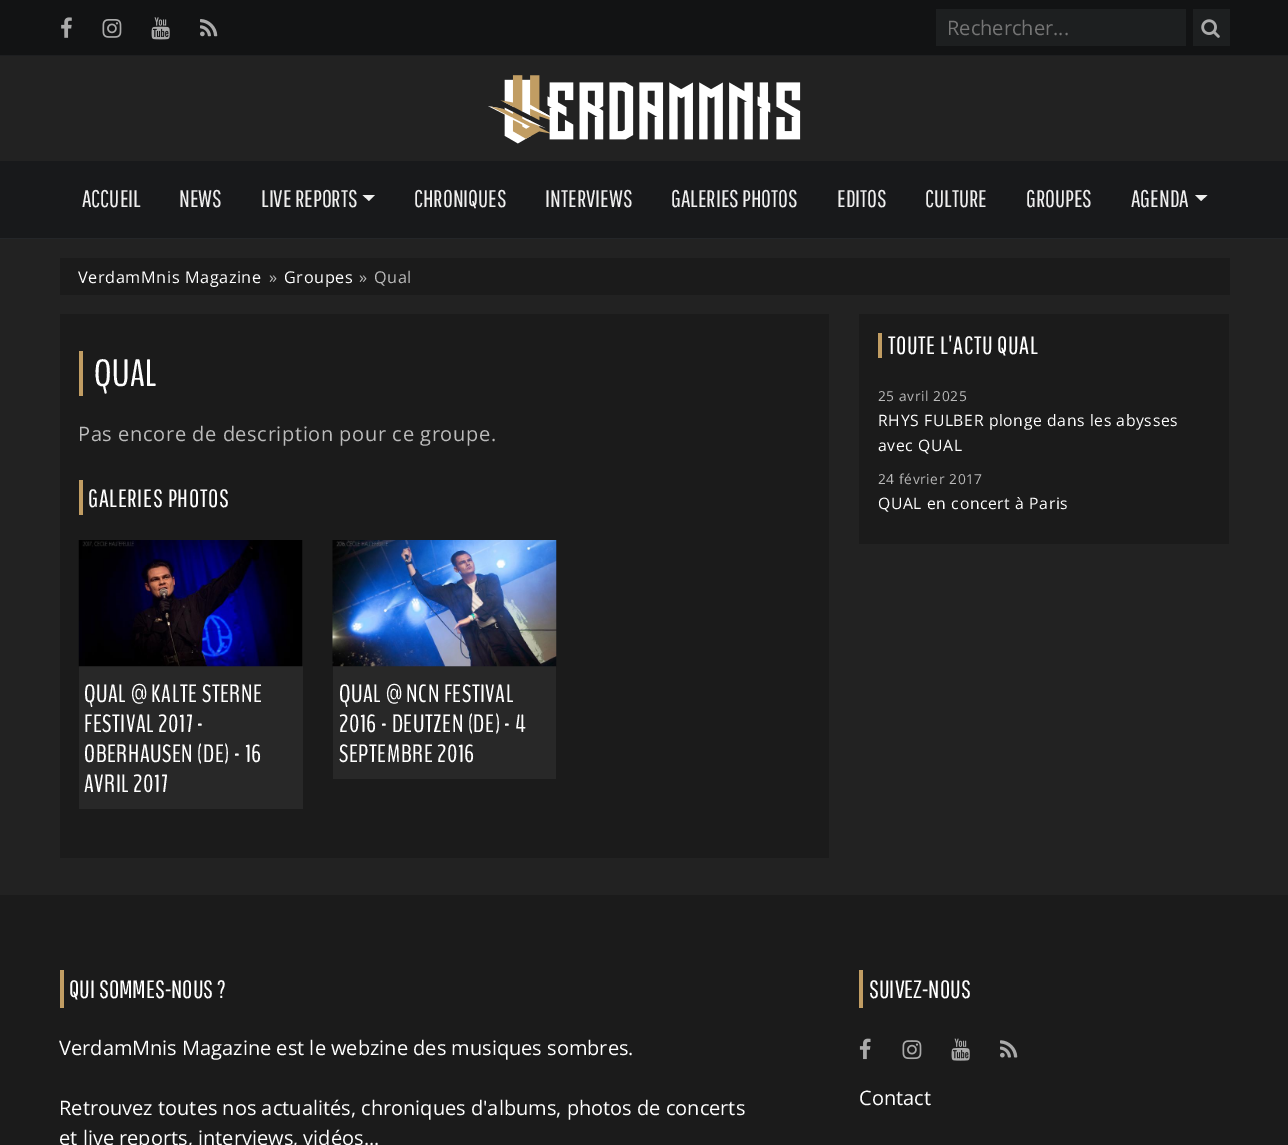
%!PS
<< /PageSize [1288 1145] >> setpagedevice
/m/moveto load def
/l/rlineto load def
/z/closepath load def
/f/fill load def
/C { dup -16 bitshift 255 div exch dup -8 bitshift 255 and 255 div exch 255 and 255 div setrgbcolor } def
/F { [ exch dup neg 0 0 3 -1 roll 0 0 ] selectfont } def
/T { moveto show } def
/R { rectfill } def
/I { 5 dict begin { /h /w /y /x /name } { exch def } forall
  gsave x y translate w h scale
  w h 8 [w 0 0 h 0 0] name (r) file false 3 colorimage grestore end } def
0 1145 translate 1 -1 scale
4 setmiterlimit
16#222222 C
0 0 1288 1145 R
16#121314 C
0 0 1288 55 R
16#1D1E20 C
0 55 1288 1 R
(1.rgb) 61 17 11 21 I
(2.rgb) 102 19 20 19 I
(3.rgb) 151 17 19 23 I
(4.rgb) 200 19 18 18 I
16#1D1F20 C
936 9 250 37 R
/OpenSans-Regular 20 F
16#757575 C
(Rechercher...) 947 35 T
16#1D1F20 C
1193 9 37 37 R
(5.rgb) 1201 19 19 19 I
(6.rgb) 488 75 313 69 I
16#18191B C
0 161 1288 77 R
16#242629 C
0 238 1288 1 R
/PathwayGothicOne-Regular 24 F
16#EEEEEE C
(ACCUEIL) 82 207 T
(NEWS) 179 207 T
(LIVE REPORTS) 261 207 T
362.5 195 m 12.5 0 l -6 6 l z f
(CHRONIQUES) 414 207 T
(INTERVIEWS) 545 207 T
(GALERIES PHOTOS) 671 207 T
(EDITOS) 837 207 T
(CULTURE) 925 207 T
(GROUPES) 1026 207 T
(AGENDA) 1131 207 T
1195 195 m 12.5 0 l -6.5 6 l z f
16#1B1B1B C
60 258 1170 37 R
/OpenSans-Regular 16.25 F
16#FFFFFF C
78 283 m .6 0 (VerdamMnis Magazine) ashow
16#BBBBBB C
269 283 m .6 0 (») ashow
16#FFFFFF C
284 283 m .6 0 (Groupes) ashow
16#BBBBBB C
359 283 m .6 0 (») ashow
374 283 m .6 0 (Qual) ashow
16#1B1B1B C
60 314 769 544 R
16#C19D63 C
79 351 4 45 R
/BenchNine-Regular 38 F
16#FFFFFF C
94 386 m .6 0 (QUAL) ashow
/OpenSans-Regular 20 F
16#BBBBBB C
78 441 m .6 0 (Pas encore de description pour ce groupe.) ashow
16#C19D63 C
79 480 4 35 R
/PathwayGothicOne-Regular 25 F
16#FFFFFF C
88 507 m .6 0 (GALERIES PHOTOS) ashow
16#282828 C
79 540 224 269 R
(7.rgb) 78 540 225 127 I
/BenchNine-Regular 25 F
16#FFFFFF C
84 702 m .6 0 (QUAL @ KALTE STERNE) ashow
84 732 m .6 0 (FESTIVAL 2017 -) ashow
84 762 m .6 0 (OBERHAUSEN \(DE\) - 16) ashow
84 792 m .6 0 (AVRIL 2017) ashow
16#282828 C
333 666 223 113 R
(8.rgb) 332 540 225 127 I
16#FFFFFF C
339 702 m .6 0 (QUAL @ NCN FESTIVAL) ashow
339 732 m .6 0 (2016 - DEUTZEN \(DE\) - 4) ashow
339 762 m .6 0 (SEPTEMBRE 2016) ashow
16#1B1B1B C
859 314 370 230 R
16#C19D63 C
878 333 4 25 R
/PathwayGothicOne-Regular 25 F
16#FFFFFF C
888 354 m .6 0 (TOUTE L'ACTU QUAL) ashow
/OpenSans-Regular 13.75 F
16#BBBBBB C
878 401 m .6 0 (25 avril 2025) ashow
/OpenSans-Regular 15.75 F
16#FFFFFF C
878 426 m .6 0 (RHYS FULBER plonge dans les abysses) ashow
878 451 m .6 0 (avec QUAL) ashow
/OpenSans-Regular 13.75 F
16#BBBBBB C
878 484 m .6 0 (24 février 2017) ashow
/OpenSans-Regular 15.75 F
16#FFFFFF C
878 509 m .6 0 (QUAL en concert à Paris) ashow
16#1B1B1B C
0 895 1288 250 R
16#C19D63 C
60 970 4 38 R
/PathwayGothicOne-Regular 25 F
16#FFFFFF C
(QUI SOMMES-NOUS ?) 69 998 T
/OpenSans-Regular 20 F
(VerdamMnis Magazine est le webzine des musiques sombres.) 59 1055 T
(Retrouvez toutes nos actualités, chroniques d'albums, photos de concerts) 59 1115 T
(et live reports, interviews, vidéos...) 59 1145 T
16#C19D63 C
859 970 4 38 R
/PathwayGothicOne-Regular 25 F
16#FFFFFF C
(SUIVEZ-NOUS) 869 998 T
(9.rgb) 859 1038 12 22 I
(10.rgb) 902 1040 20 20 I
(11.rgb) 951 1038 19 23 I
(12.rgb) 1000 1040 18 18 I
/OpenSans-Regular 20 F
(Contact) 859 1105 T
showpage
